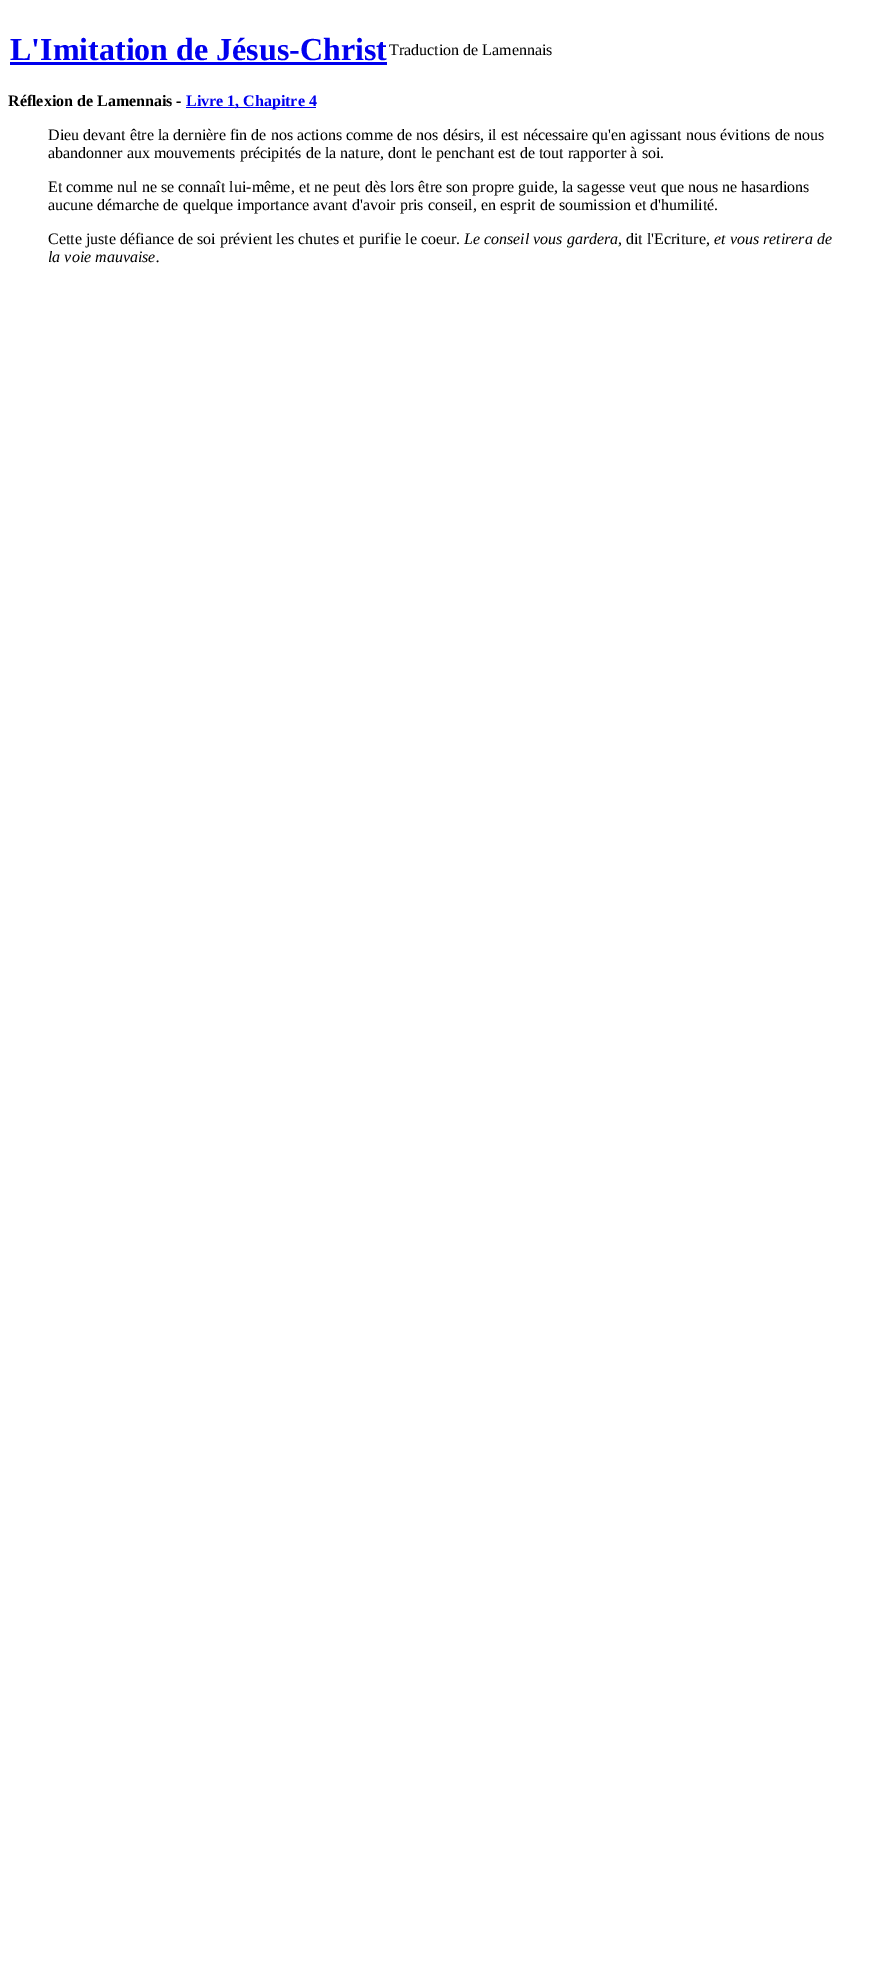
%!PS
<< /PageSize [889 1985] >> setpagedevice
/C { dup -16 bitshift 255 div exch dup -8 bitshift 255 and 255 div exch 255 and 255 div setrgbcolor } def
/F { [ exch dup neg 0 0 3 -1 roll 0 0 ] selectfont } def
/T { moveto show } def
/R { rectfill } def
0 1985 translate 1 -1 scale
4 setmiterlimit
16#FFFFFF C
0 0 889 1985 R
/LiberationSerif-Bold 32 F
16#0000EE C
(L'Imitation de Jésus-Christ) 10 60 T
10 62 377 3 R
/LiberationSerif-Regular 16 F
16#000000 C
(Traduction de Lamennais) 389 55 T
/LiberationSerif-Bold 16 F
(Réflexion de Lamennais -) 8 106 T
16#0000EE C
186 107 130 1 R
(Livre 1, Chapitre 4) 186 106 T
/LiberationSerif-Regular 16 F
16#000000 C
(Dieu devant être la dernière fin de nos actions comme de nos désirs, il est nécessaire qu'en agissant nous évitions de nous) 48 140 T
(abandonner aux mouvements précipités de la nature, dont le penchant est de tout rapporter à soi.) 48 158 T
(Et comme nul ne se connaît lui-même, et ne peut dès lors être son propre guide, la sagesse veut que nous ne hasardions) 48 192 T
(aucune démarche de quelque importance avant d'avoir pris conseil, en esprit de soumission et d'humilité.) 48 210 T
(Cette juste défiance de soi prévient les chutes et purifie le coeur.) 48 244 T
/LiberationSerif-Italic 16 F
(Le conseil vous gardera) 464 244 T
/LiberationSerif-Regular 16 F
(, dit l'Ecriture,) 618 244 T
/LiberationSerif-Italic 16 F
(et vous retirera de) 714 244 T
(la voie mauvaise.) 48 262 T
showpage
